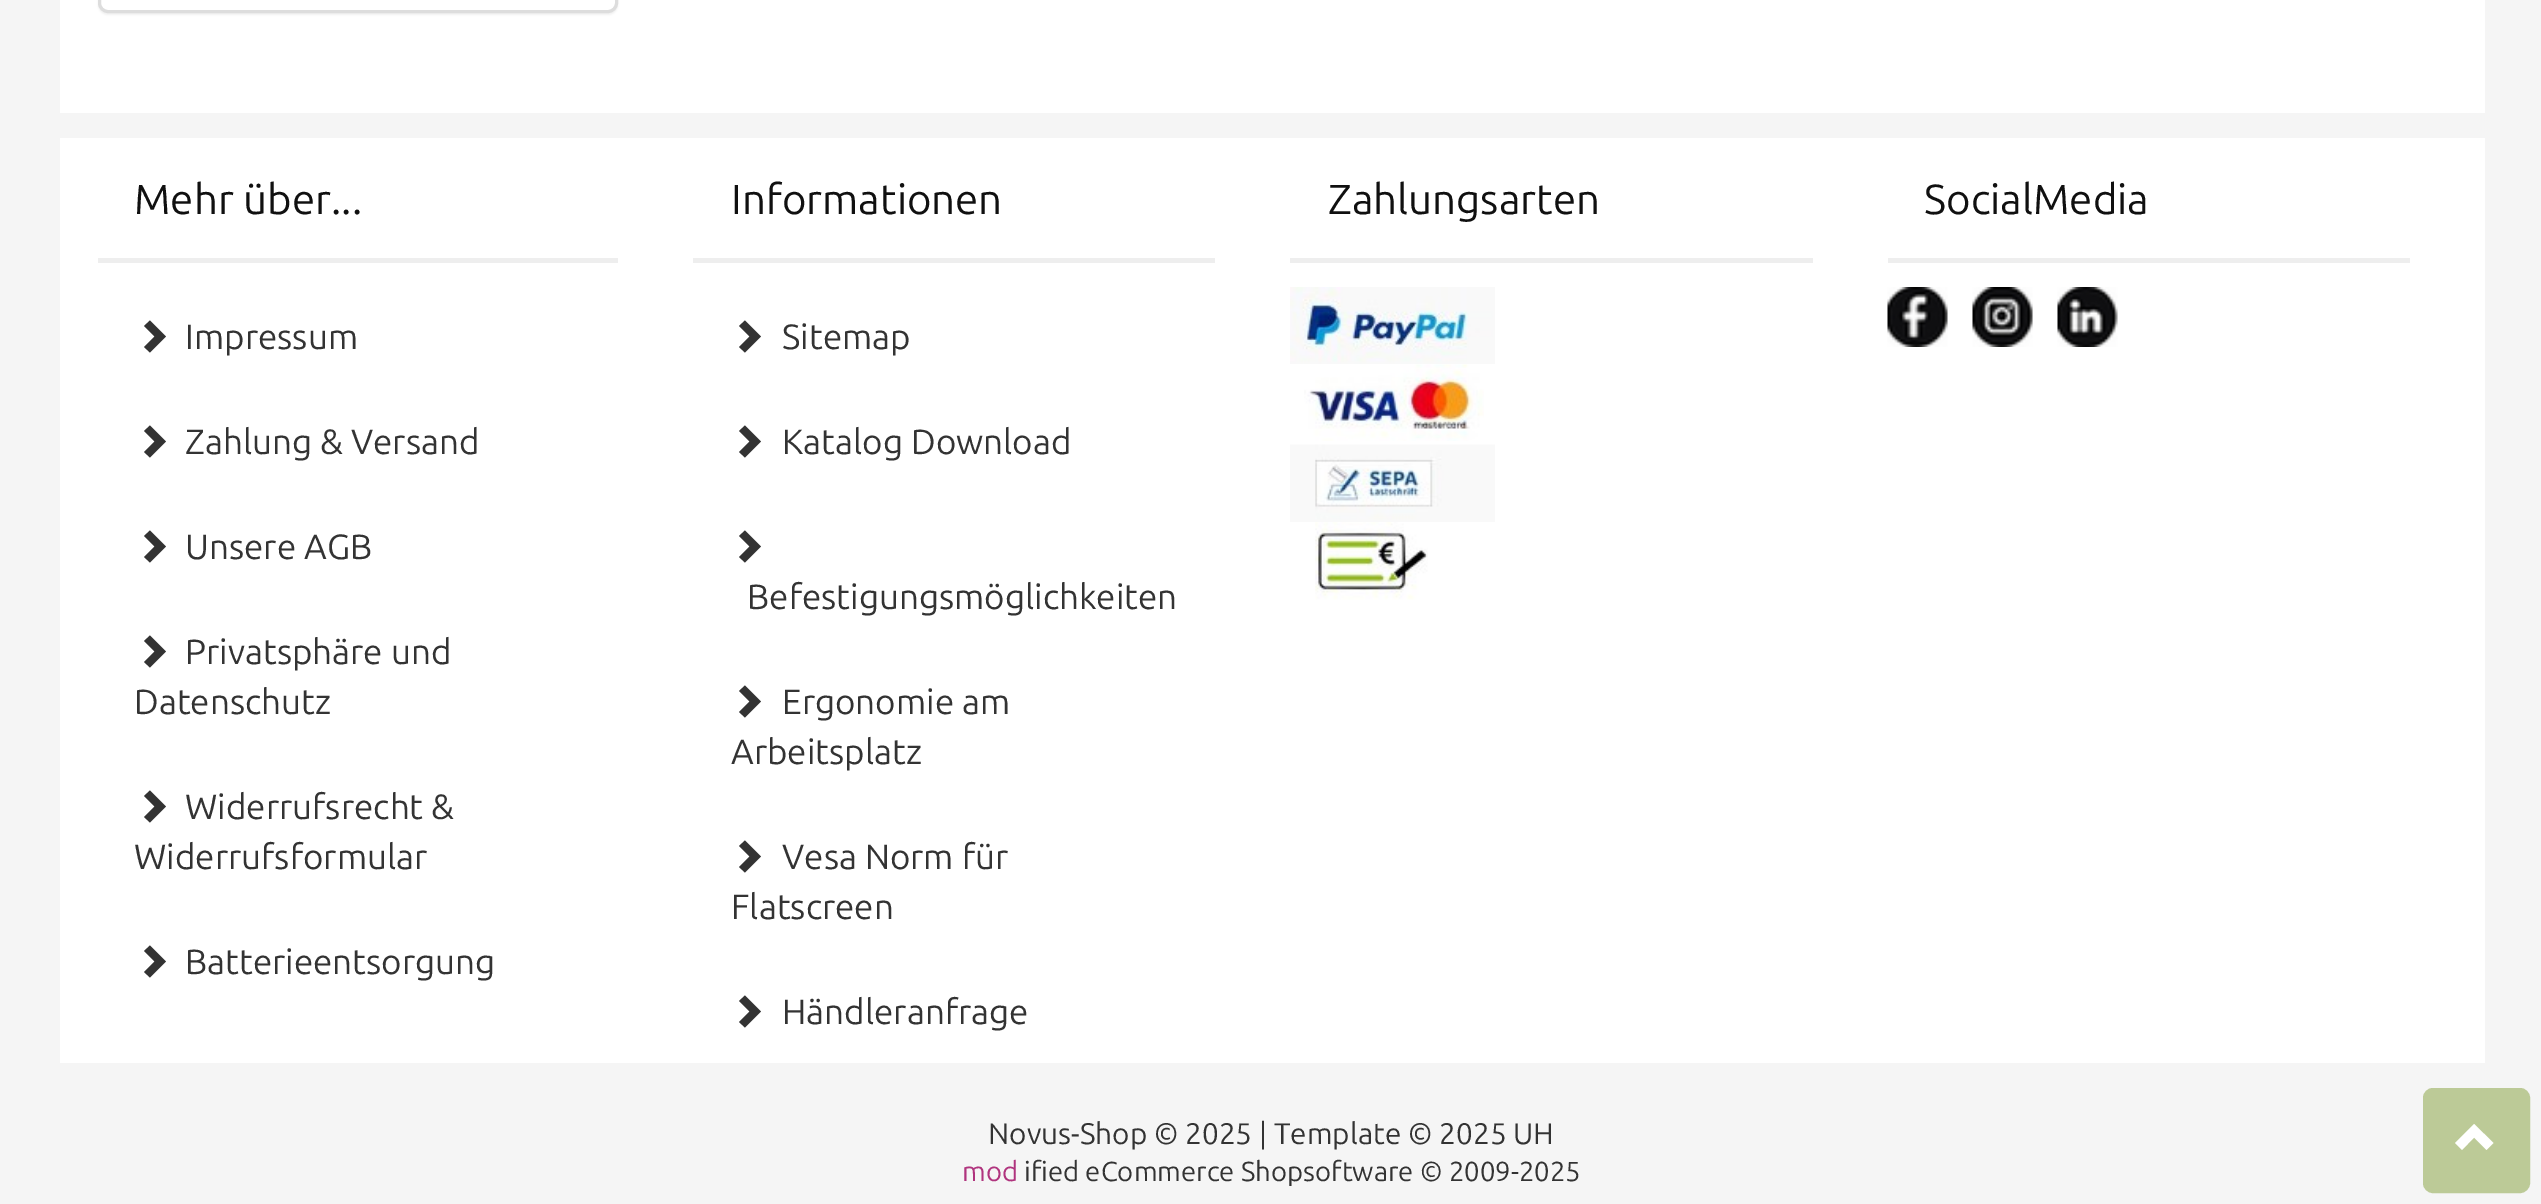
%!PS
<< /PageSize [2541 1204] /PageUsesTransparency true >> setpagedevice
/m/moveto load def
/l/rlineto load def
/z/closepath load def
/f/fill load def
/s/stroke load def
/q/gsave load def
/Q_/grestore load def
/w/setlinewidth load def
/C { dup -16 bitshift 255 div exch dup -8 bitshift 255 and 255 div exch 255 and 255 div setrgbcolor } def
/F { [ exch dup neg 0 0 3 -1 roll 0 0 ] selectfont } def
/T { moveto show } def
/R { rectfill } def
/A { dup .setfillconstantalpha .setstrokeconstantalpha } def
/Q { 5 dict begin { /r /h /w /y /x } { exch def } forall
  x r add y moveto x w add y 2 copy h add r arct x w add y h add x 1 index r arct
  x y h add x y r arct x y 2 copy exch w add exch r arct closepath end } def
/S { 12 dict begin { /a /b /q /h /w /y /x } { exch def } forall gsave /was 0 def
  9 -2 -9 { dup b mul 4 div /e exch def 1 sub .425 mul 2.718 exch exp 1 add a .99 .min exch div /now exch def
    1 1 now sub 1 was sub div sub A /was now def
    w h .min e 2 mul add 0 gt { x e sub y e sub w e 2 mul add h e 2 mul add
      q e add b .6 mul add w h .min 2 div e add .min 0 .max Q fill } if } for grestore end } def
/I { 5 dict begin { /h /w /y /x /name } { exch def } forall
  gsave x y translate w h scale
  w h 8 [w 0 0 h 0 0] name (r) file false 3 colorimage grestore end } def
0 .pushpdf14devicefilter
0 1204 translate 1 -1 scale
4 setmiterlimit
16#F5F5F5 C
0 0 2541 1204 R
16#FFFFFF C
60 0 2425 113 R
16#000000 C
98 -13 520 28 10 1 .05 S
16#FFFFFF C
99.5 -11.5 517 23 8.5 Q q f Q_
16#DDDDDD C
3 w
s
16#FFFFFF C
60 138 2425 925 R
16#EEEEEE C
98 258 520 5 R
/Ubuntu-Regular 42 F
16#101010 C
(Mehr über...) 134 214 T
16#333333 C
166 336.5 m -16 16 l -6 -5.5 l 10.5 -10.5 l -10.5 -10.5 l 6 -5.5 l z f
/Ubuntu-Regular 35 F
(Impressum) 185 349 T
166 441.5 m -16 16 l -6 -5.5 l 10.5 -10.5 l -10.5 -10.5 l 6 -5.5 l z f
(Zahlung & Versand) 185 454 T
166 546.5 m -16 16 l -6 -5.5 l 10.5 -10.5 l -10.5 -10.5 l 6 -5.5 l z f
(Unsere AGB) 185 559 T
166 651.5 m -16 16 l -6 -5.5 l 10.5 -10.5 l -10.5 -10.5 l 6 -5.5 l z f
(Privatsphäre und) 185 664 T
(Datenschutz) 134 714 T
166 806.5 m -16 16 l -6 -5.5 l 10.5 -10.5 l -10.5 -10.5 l 6 -5.5 l z f
(Widerrufsrecht &) 185 819 T
(Widerrufsformular) 134 869 T
166 961.5 m -16 16 l -6 -5.5 l 10.5 -10.5 l -10.5 -10.5 l 6 -5.5 l z f
(Batterieentsorgung) 185 974 T
16#EEEEEE C
693 258 522 5 R
/Ubuntu-Regular 42 F
16#101010 C
(Informationen) 731 214 T
16#333333 C
761 336.5 m -16 16 l -6 -5.5 l 10.5 -10.5 l -10.5 -10.5 l 6 -5.5 l z f
/Ubuntu-Regular 35 F
(Sitemap) 782 349 T
761 441.5 m -16 16 l -6 -5.5 l 10.5 -10.5 l -10.5 -10.5 l 6 -5.5 l z f
(Katalog Download) 782 454 T
761 546.5 m -16 16 l -6 -5.5 l 10.5 -10.5 l -10.5 -10.5 l 6 -5.5 l z f
(Befestigungsmöglichkeiten) 747 609 T
761 701.5 m -16 16 l -6 -5.5 l 10.5 -10.5 l -10.5 -10.5 l 6 -5.5 l z f
(Ergonomie am) 782 714 T
(Arbeitsplatz) 731 764 T
761 856.5 m -16 16 l -6 -5.5 l 10.5 -10.5 l -10.5 -10.5 l 6 -5.5 l z f
(Vesa Norm für) 782 869 T
(Flatscreen) 731 919 T
761 1011.5 m -16 16 l -6 -5.5 l 10.5 -10.5 l -10.5 -10.5 l 6 -5.5 l z f
(Händleranfrage) 782 1024 T
16#EEEEEE C
1290 258 523 5 R
/Ubuntu-Regular 42 F
16#101010 C
(Zahlungsarten) 1328 214 T
(1.rgb) 1290 287 205 77 I
(2.rgb) 1304 364 180 77 I
(3.rgb) 1290 444 205 78 I
(4.rgb) 1315 522 113 78 I
16#EEEEEE C
1888 258 522 5 R
16#101010 C
(SocialMedia) 1924 214 T
(5.rgb) 1887 287 61 60 I
(6.rgb) 1972 287 61 60 I
(7.rgb) 2057 287 61 60 I
/Ubuntu-Regular 29.75 F
16#333333 C
(Novus-Shop © 2025 | Template © 2025 UH) 988 1144 T
16#BCCA97 C
2424.5 1089.5 104 102 8.5 Q q f Q_
s
16#FFFFFF C
2493.5 1143 m -7 7 l -12.5 -12.5 l -12 12.5 l -7 -7 l 19 -19 l z f
/Ubuntu-Regular 27.5 F
16#B0347E C
(mod) 962 1181 T
16#333333 C
(ified eCommerce Shopsoftware © 2009-2025) 1024 1181 T
.poppdf14devicefilter showpage
